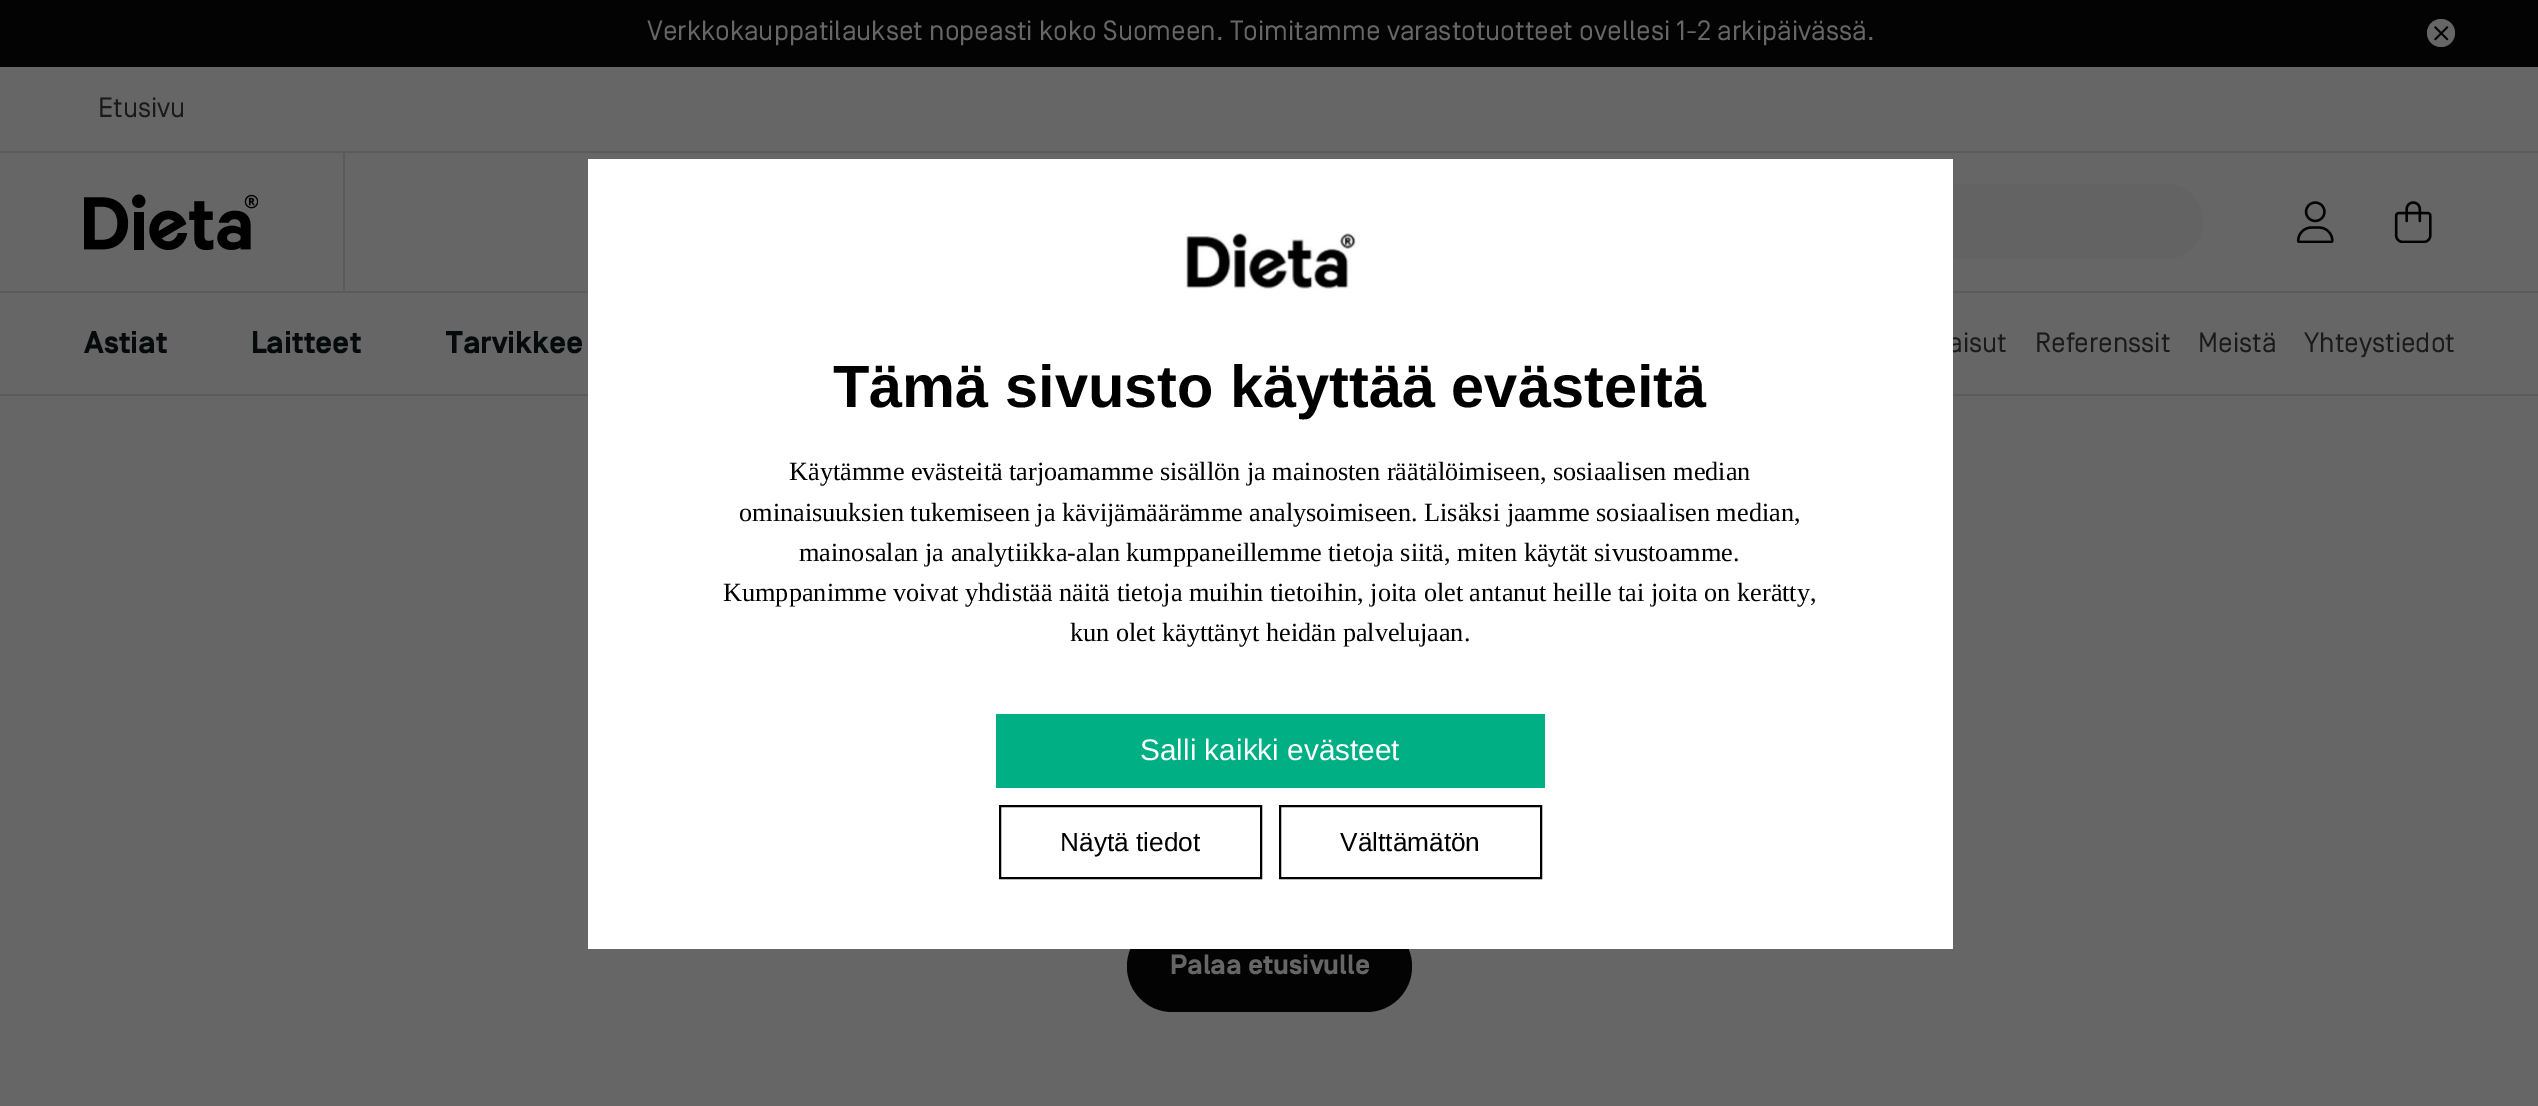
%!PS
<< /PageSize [2538 1106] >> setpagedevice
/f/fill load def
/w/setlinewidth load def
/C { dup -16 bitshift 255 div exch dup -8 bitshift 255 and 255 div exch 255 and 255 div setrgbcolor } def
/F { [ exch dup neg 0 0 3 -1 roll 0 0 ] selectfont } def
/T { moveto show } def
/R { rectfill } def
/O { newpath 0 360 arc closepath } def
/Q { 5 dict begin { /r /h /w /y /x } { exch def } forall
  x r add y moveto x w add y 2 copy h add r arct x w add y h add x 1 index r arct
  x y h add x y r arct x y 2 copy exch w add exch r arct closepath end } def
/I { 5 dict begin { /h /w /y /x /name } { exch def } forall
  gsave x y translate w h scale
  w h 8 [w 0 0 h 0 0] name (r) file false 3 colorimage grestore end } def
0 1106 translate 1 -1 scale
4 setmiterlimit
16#666666 C
0 0 2538 1106 R
16#030303 C
0 0 2538 67 R
/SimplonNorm-Regular 28 F
16#666666 C
(Verkkokauppatilaukset nopeasti koko Suomeen. Toimitamme varastotuotteet ovellesi 1-2 arkipäivässä.) 647 40 T
2441 33 14 O f
(1.rgb) 2434 26 15 15 I
16#1A1A1A C
(Etusivu) 98 117 T
16#5B5B5B C
343 152 2 140 R
0 151 2538 2 R
(2.rgb) 84 194 174 56 I
16#636363 C
1363 184 840 75 37.5 Q f
(3.rgb) 2296 201 38 42 I
(4.rgb) 2394 201 38 42 I
16#5B5B5B C
0 291 2538 2 R
/SimplonNorm-Bold 31.5 F
16#070A0B C
(Astiat) 84 353 T
(Laitteet) 251 353 T
(Tarvikkee) 446 353 T
/SimplonNorm-Regular 28 F
16#1A1A1A C
(aisut) 1948 352 T
(Referenssit) 2035 352 T
(Meistä) 2198 352 T
(Yhteystiedot) 2304 352 T
16#5B5B5B C
0 394 2538 2 R
16#030303 C
1127 921 285 91 45.5 Q f
16#FFFFFF C
588 159 1365 790 R
(5.rgb) 1185 233 171 56 I
/LiberationSans-Bold 59.5 F
16#000000 C
(Tämä sivusto käyttää evästeitä) 833 407 T
/LiberationSerif-Regular 26.25 F
(Käytämme evästeitä tarjoamamme sisällön ja mainosten räätälöimiseen, sosiaalisen median) 789 480 T
(ominaisuuksien tukemiseen ja kävijämäärämme analysoimiseen. Lisäksi jaamme sosiaalisen median,) 739 521 T
(mainosalan ja analytiikka-alan kumppaneillemme tietoja siitä, miten käytät sivustoamme.) 799 561 T
(Kumppanimme voivat yhdistää näitä tietoja muihin tietoihin, joita olet antanut heille tai joita on kerätty,) 723 601 T
(kun olet käyttänyt heidän palvelujaan.) 1070 641 T
16#00AF83 C
996 714 549 74 R
/LiberationSans-Regular 29.75 F
16#FFFFFF C
(Salli kaikki evästeet) 1140 760 T
16#000000 C
2 w
1000 806 261 72 rectstroke
/LiberationSans-Regular 26.25 F
(Näytä tiedot) 1060 851 T
1280 806 261 72 rectstroke
(Välttämätön) 1340 851 T
/SimplonNorm-Bold 28 F
16#666666 C
(Palaa etusivulle) 1170 974 T
showpage
